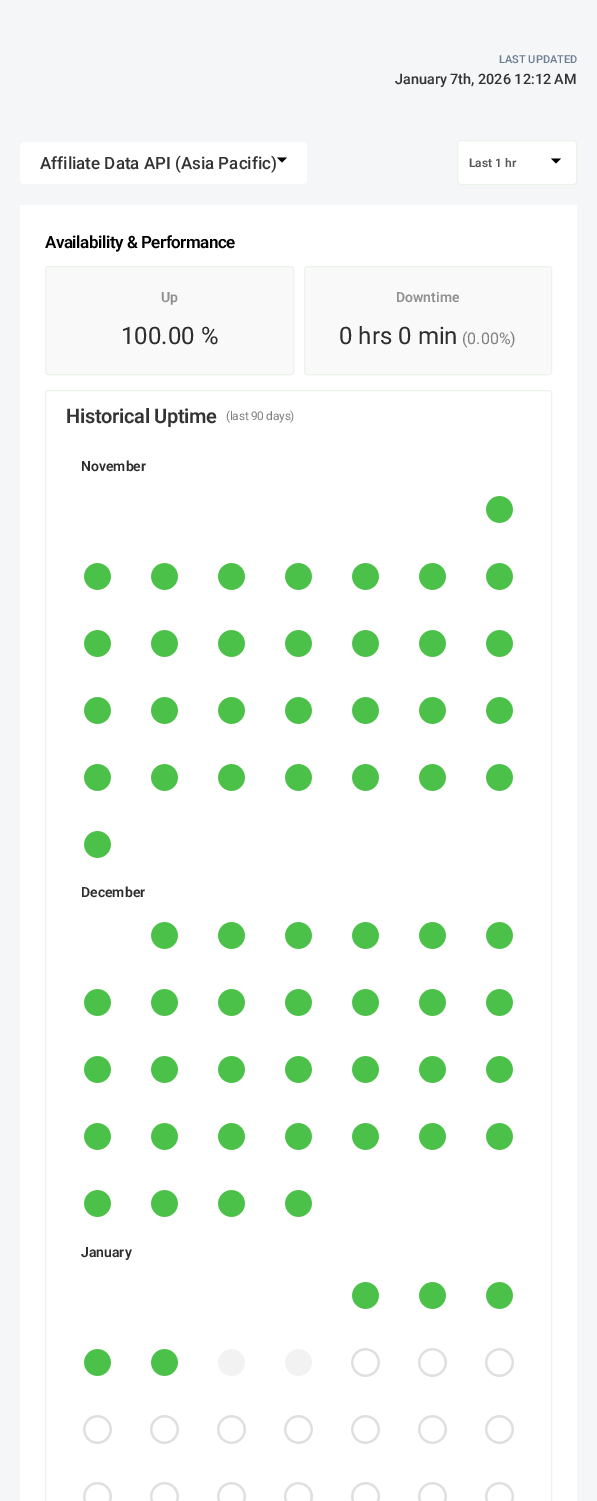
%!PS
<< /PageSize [597 1501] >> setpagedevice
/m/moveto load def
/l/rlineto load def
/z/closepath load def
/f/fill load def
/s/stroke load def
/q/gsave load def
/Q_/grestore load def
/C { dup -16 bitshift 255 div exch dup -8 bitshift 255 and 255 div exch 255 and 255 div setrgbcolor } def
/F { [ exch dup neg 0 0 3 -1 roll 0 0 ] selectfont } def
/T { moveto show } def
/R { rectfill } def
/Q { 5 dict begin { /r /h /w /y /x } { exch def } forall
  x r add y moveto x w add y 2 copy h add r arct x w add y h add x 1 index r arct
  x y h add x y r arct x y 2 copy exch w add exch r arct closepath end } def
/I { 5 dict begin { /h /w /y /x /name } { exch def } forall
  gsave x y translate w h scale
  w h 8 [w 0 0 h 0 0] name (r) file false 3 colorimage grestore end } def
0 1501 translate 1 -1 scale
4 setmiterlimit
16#F4F6F8 C
0 0 597 1501 R
/Roboto-Medium 11 F
16#6B7C93 C
(LAST UPDATED) 499 63 T
/Roboto-Medium 14.4 F
16#333333 C
(January 7th, 2026 12:12 AM) 395 84 T
16#FFFFFF C
20 142 287 42 4 Q f
/Roboto-Medium 17 F
16#333333 C
(Affiliate Data API \(Asia Pacific\)) 40 169 T
16#000000 C
277 157.5 m 5 5 l 5 -5 l z f
16#FFFFFF C
457.5 140.5 119 44 3.5 Q q f Q_
16#EBF3EB C
s
/Roboto-SemiBold 12 F
16#555555 C
(Last 1 hr) 469 167 T
16#000000 C
551 158.5 m 5 5 l 5 -5 l z f
16#FFFFFF C
20 205 557 1296 R
/Roboto-SemiBold 17 F
16#000000 C
45 248 m -.5 0 (Availability & Performance) ashow
16#F9F9F9 C
45.5 266.5 248 108 2.5 Q q f Q_
16#EBF3EB C
s
/Roboto-SemiBold 14 F
16#919191 C
(Up) 161 302 T
/Roboto-Regular 24 F
16#2D2D2D C
(100.00 %) 121 344 T
16#F9F9F9 C
304.5 266.5 247 108 2.5 Q q f Q_
16#EBF3EB C
s
/Roboto-SemiBold 14 F
16#919191 C
(Downtime) 396 302 T
/Roboto-Regular 24 F
16#2D2D2D C
(0 hrs 0 min) 339 344 T
/Roboto-Regular 16 F
16#7F7F7F C
(\(0.00%\)) 462 344 T
16#EBF3EB C
45.5 390.5 506 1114 2.5 Q s
/Roboto-SemiBold 20 F
16#333333 C
66 423 m -.3 0 (Historical Uptime) ashow
/Roboto-Regular 12 F
16#7F7F7F C
226 420 m -.3 0 (\(last 90 days\)) ashow
/Roboto-SemiBold 14 F
16#2D2D2D C
(November) 81 471 T
(1.rgb) 84 496 429 362 I
(December) 81 897 T
(2.rgb) 84 922 429 295 I
(January) 81 1257 T
(3.rgb) 83 1282 431 219 I
showpage
